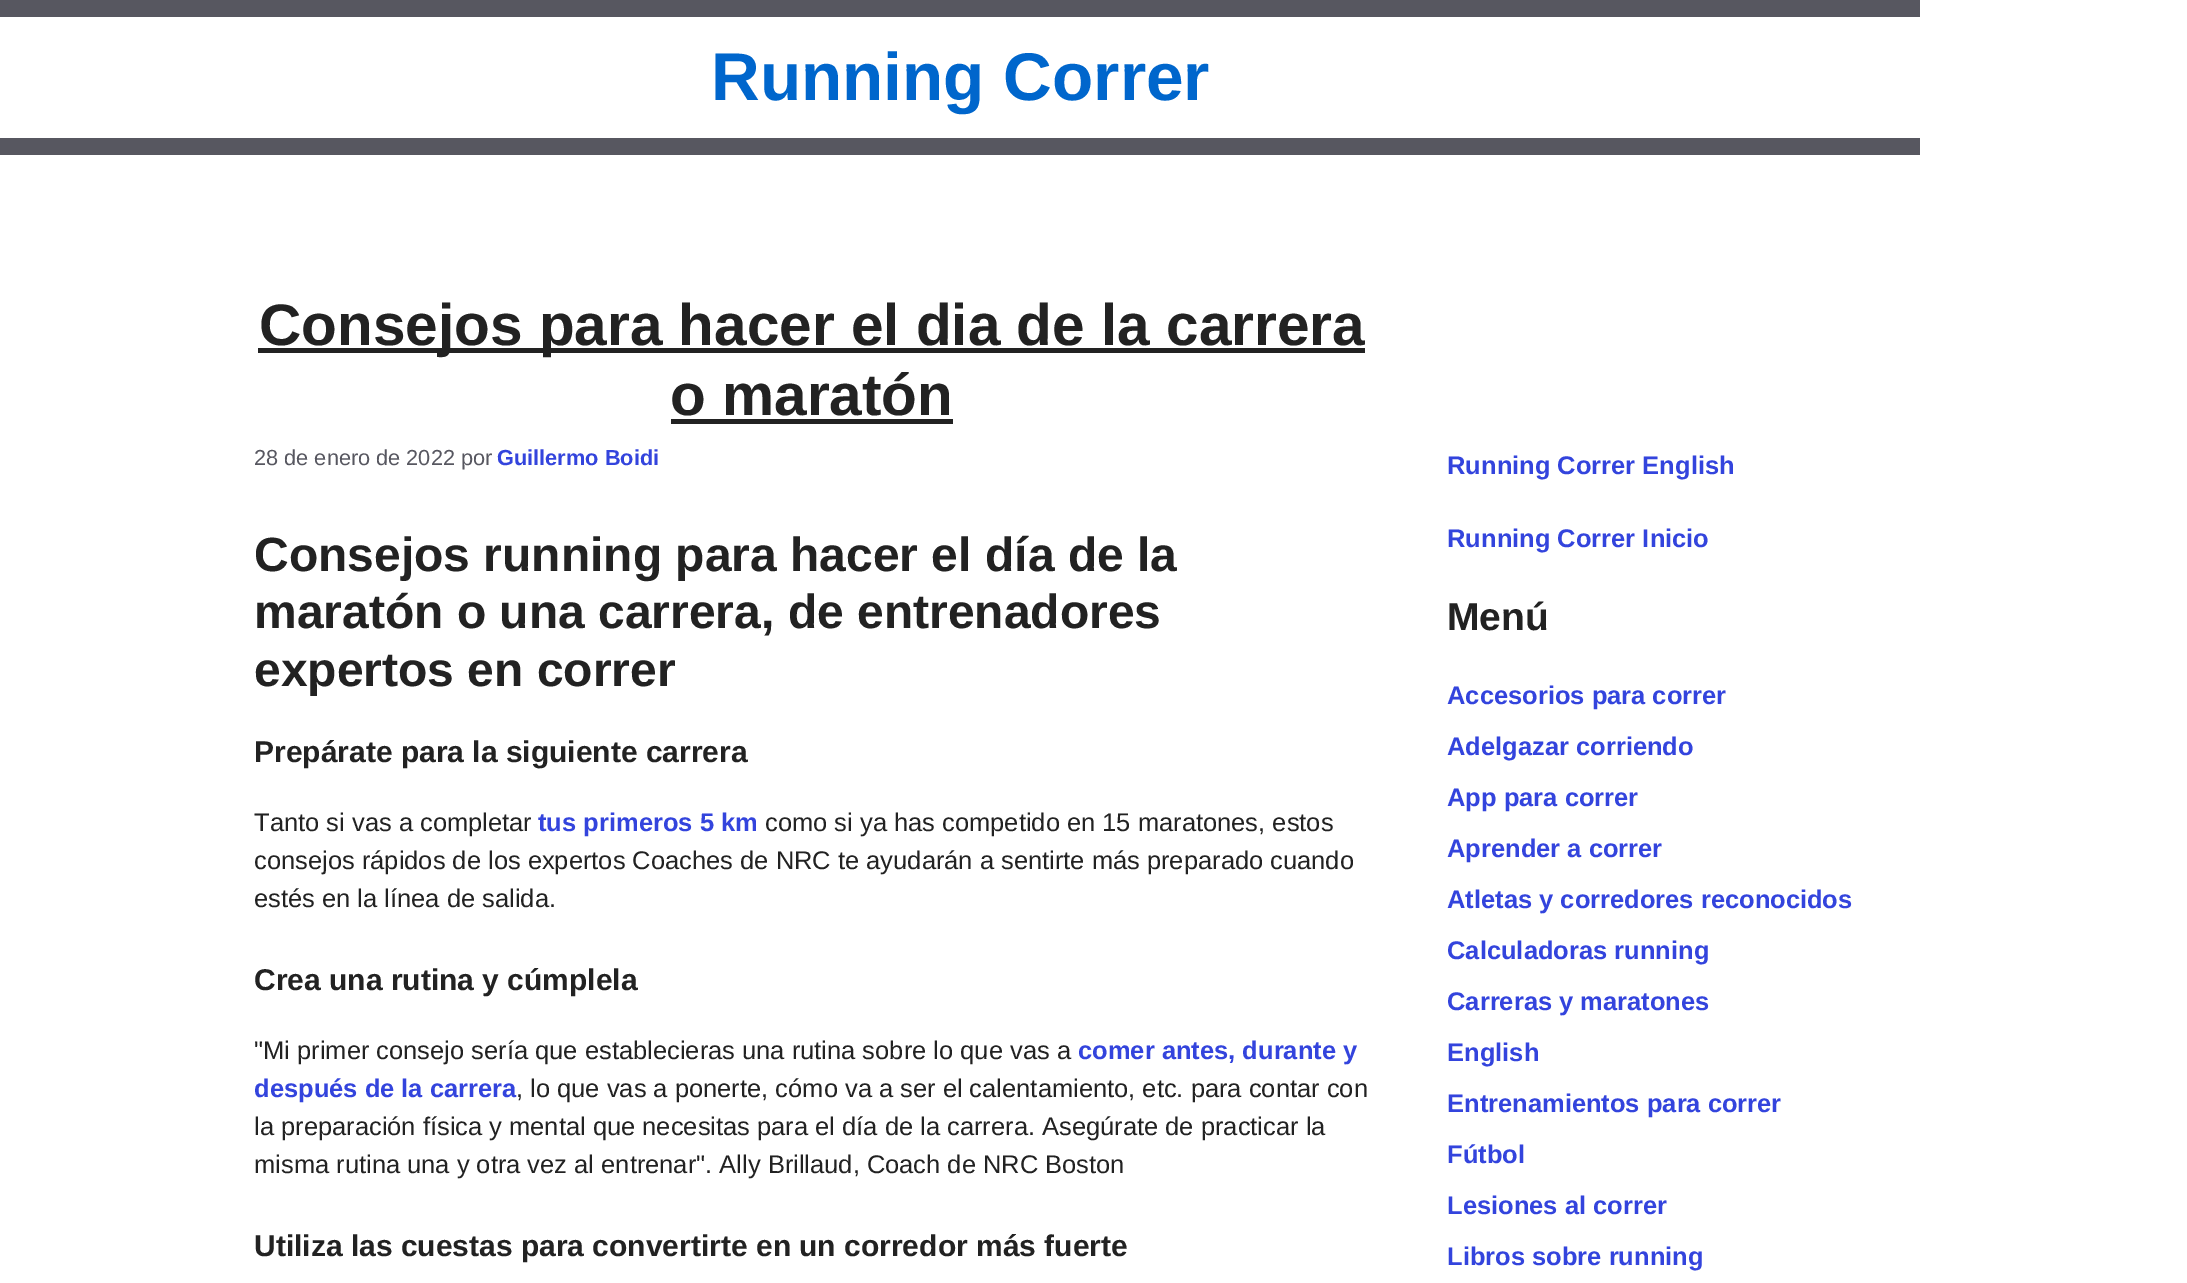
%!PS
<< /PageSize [2187 1283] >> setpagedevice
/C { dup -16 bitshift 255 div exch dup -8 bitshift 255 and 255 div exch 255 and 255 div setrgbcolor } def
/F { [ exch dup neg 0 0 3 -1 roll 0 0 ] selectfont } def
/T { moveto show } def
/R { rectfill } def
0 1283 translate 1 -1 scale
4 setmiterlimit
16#FFFFFF C
0 0 2187 1283 R
16#575760 C
0 0 1920 17 R
0 138 1920 17 R
/LiberationSans-Bold 67.5 F
16#0066CC C
(Running Correr) 711 100 T
16#222222 C
258 348 1107 5 R
/LiberationSans-Bold 58.5 F
(Consejos para hacer el dia de la carrera) 259 345 T
(o maratón) 670 415 T
671 419 282 5 R
/LiberationSans-Regular 21.75 F
16#575760 C
(28 de enero de 2022 por) 254 465 T
/LiberationSans-Bold 21.75 F
16#3344DD C
(Guillermo Boidi) 497 465 T
/LiberationSans-Bold 48 F
16#222222 C
(Consejos running para hacer el día de la) 254 571 T
(maratón o una carrera, de entrenadores) 254 628 T
(expertos en correr) 254 686 T
/LiberationSans-Bold 30 F
(Prepárate para la siguiente carrera) 254 762 T
/LiberationSans-Regular 25.5 F
(Tanto si vas a completar) 254 831 T
/LiberationSans-Bold 25.5 F
16#3344DD C
(tus primeros 5 km) 538 831 T
/LiberationSans-Regular 25.5 F
16#222222 C
(como si ya has competido en 15 maratones, estos) 765 831 T
(consejos rápidos de los expertos Coaches de NRC te ayudarán a sentirte más preparado cuando) 254 869 T
(estés en la línea de salida.) 254 907 T
/LiberationSans-Bold 30 F
(Crea una rutina y cúmplela) 254 990 T
/LiberationSans-Regular 25.5 F
("Mi primer consejo sería que establecieras una rutina sobre lo que vas a) 254 1059 T
/LiberationSans-Bold 25.5 F
16#3344DD C
(comer antes, durante y) 1078 1059 T
(después de la carrera) 254 1097 T
/LiberationSans-Regular 25.5 F
16#222222 C
(, lo que vas a ponerte, cómo va a ser el calentamiento, etc. para contar con) 516 1097 T
(la preparación física y mental que necesitas para el día de la carrera. Asegúrate de practicar la) 254 1135 T
(misma rutina una y otra vez al entrenar". Ally Brillaud, Coach de NRC Boston) 254 1173 T
/LiberationSans-Bold 30 F
(Utiliza las cuestas para convertirte en un corredor más fuerte) 254 1256 T
/LiberationSans-Bold 25.5 F
16#3344DD C
(Running Correr English) 1447 474 T
(Running Correr Inicio) 1447 547 T
/LiberationSans-Bold 39 F
16#222222 C
(Menú) 1447 630 T
/LiberationSans-Bold 25.5 F
16#3344DD C
(Accesorios para correr) 1447 704 T
(Adelgazar corriendo) 1447 755 T
(App para correr) 1447 806 T
(Aprender a correr) 1447 857 T
(Atletas y corredores reconocidos) 1447 908 T
(Calculadoras running) 1447 959 T
(Carreras y maratones) 1447 1010 T
(English) 1447 1061 T
(Entrenamientos para correr) 1447 1112 T
(Fútbol) 1447 1163 T
(Lesiones al correr) 1447 1214 T
(Libros sobre running) 1447 1265 T
showpage
